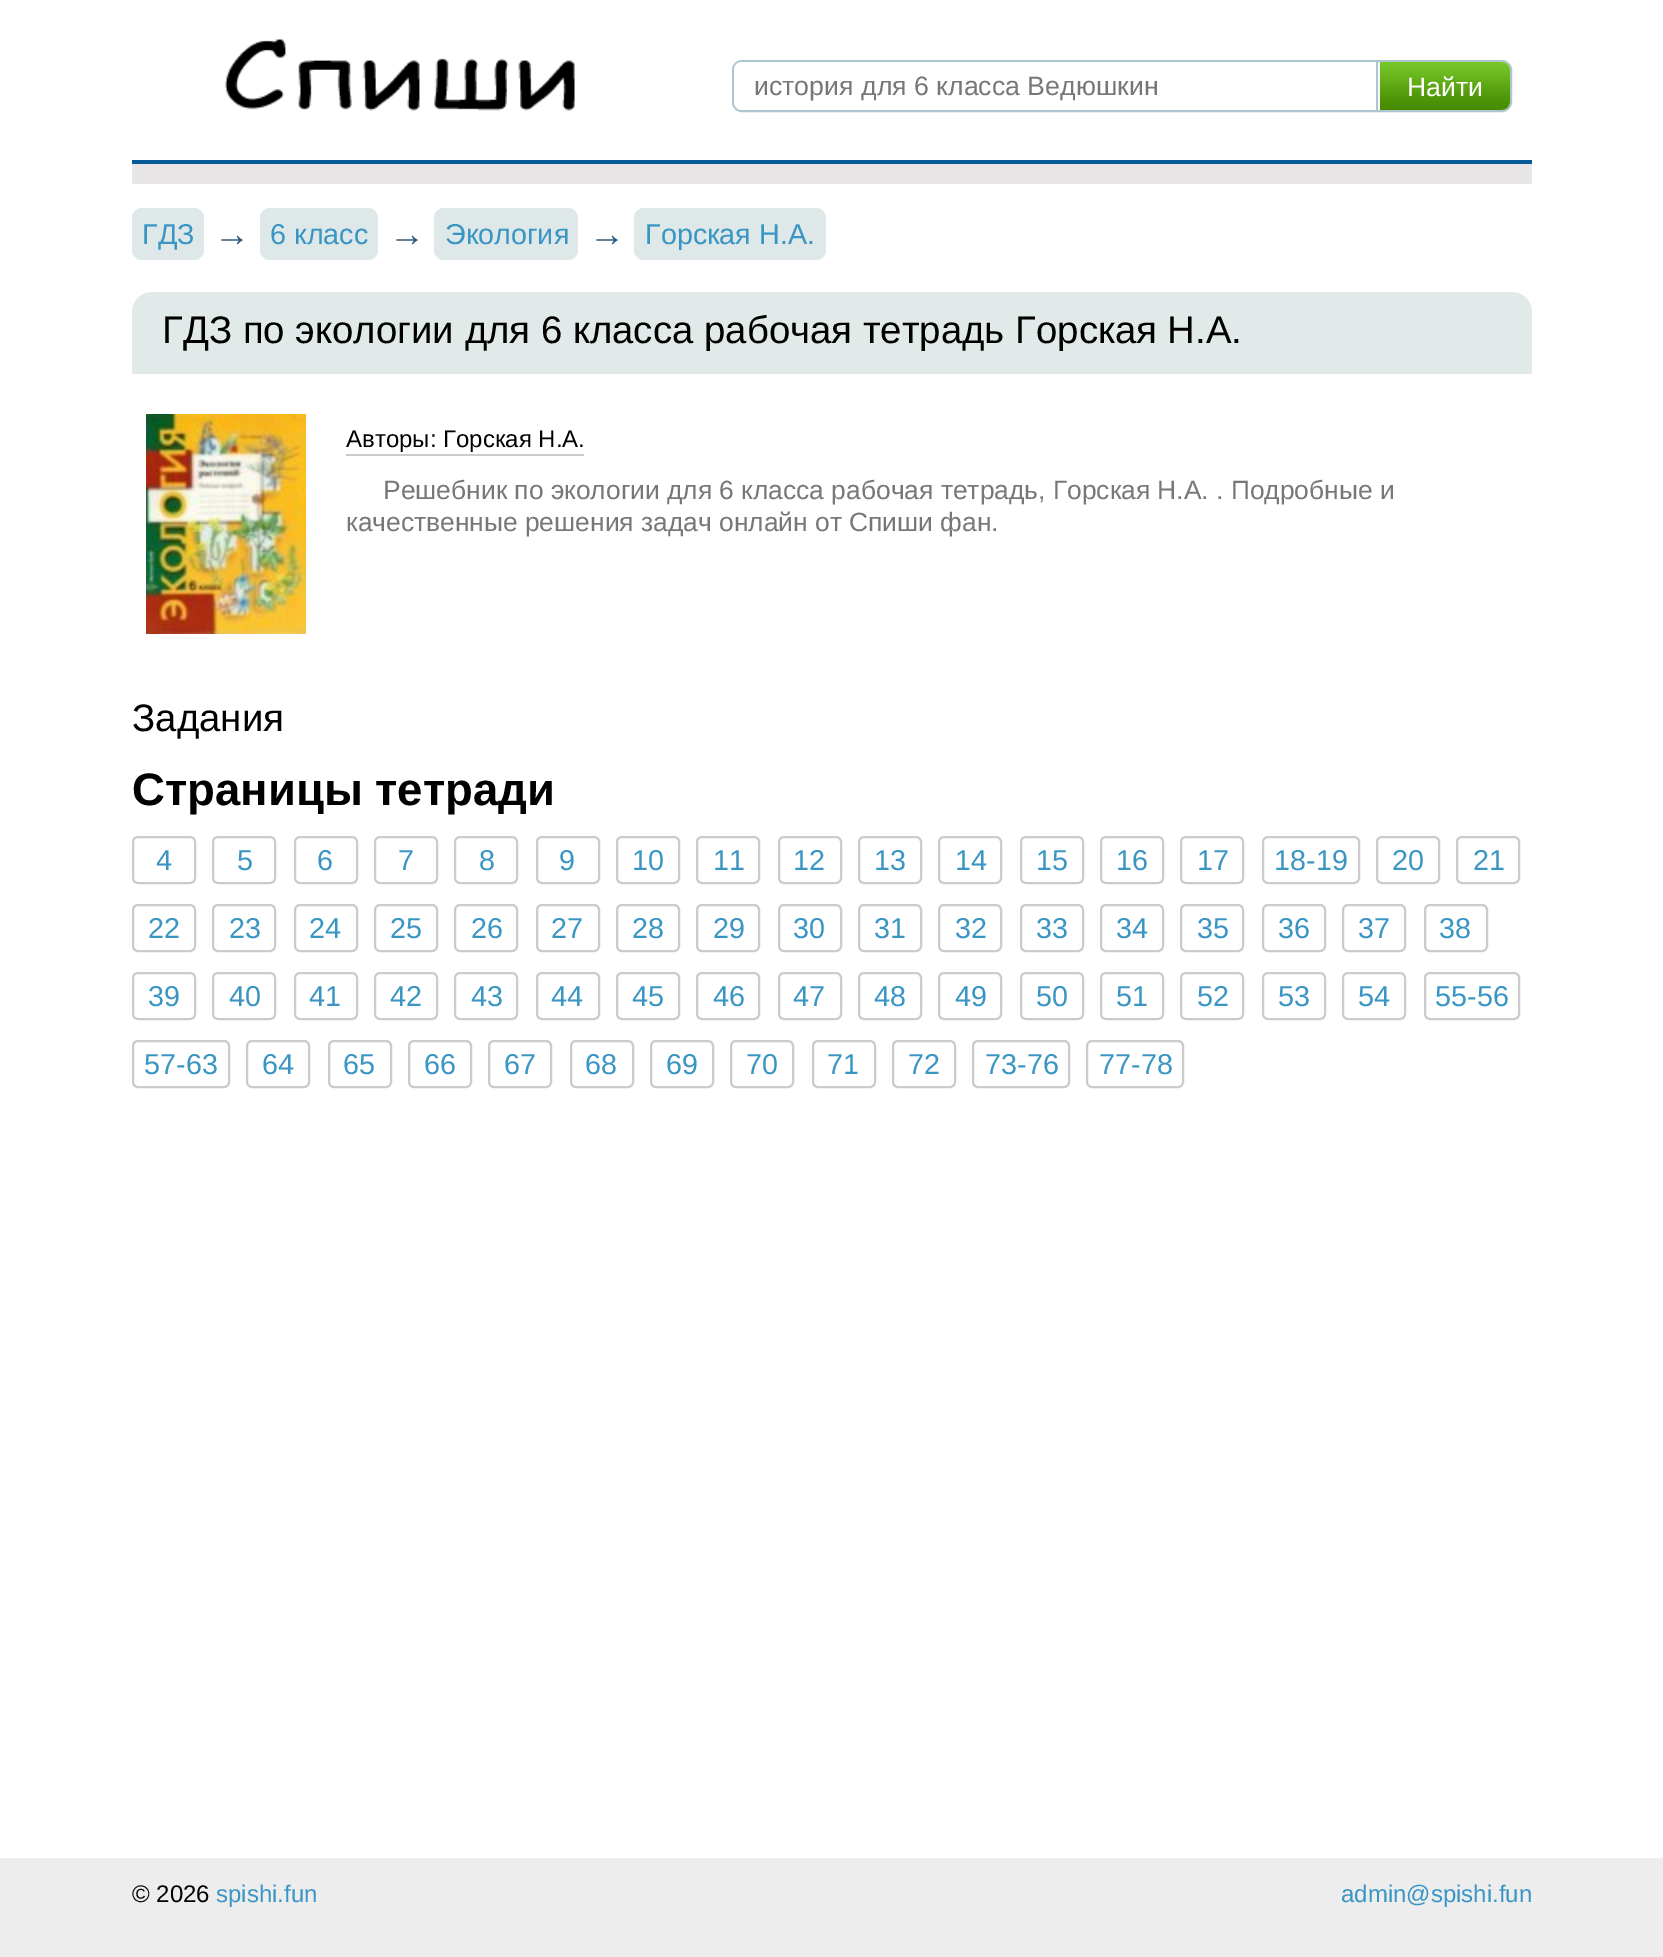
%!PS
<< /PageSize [1663 1957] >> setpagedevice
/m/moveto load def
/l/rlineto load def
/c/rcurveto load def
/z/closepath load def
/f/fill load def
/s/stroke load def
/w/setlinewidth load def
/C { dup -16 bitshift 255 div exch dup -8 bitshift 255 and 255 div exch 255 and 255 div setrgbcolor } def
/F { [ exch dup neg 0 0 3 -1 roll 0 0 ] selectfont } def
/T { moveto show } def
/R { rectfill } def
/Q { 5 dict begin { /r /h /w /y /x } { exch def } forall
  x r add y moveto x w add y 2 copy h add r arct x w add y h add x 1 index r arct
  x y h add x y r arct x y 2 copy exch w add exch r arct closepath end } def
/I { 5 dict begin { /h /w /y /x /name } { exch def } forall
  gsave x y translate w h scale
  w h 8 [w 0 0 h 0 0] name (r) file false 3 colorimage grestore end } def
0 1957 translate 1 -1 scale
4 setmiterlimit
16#FFFFFF C
0 0 1663 1957 R
(1.rgb) 224 39 351 72 I
16#ADC5CF C
2 w
733 61 778 50 9 Q s
16#FFFFFF C
742 62 m 636 0 l 0 48 l -636 0 l -4.5 0 -8 -3.5 -8 -8 c 0 -32 l 0 -4.5 3.5 -8 8 -8 c z f
16#ADC5CF C
1376 62 2 48 R
/LiberationSans-Regular 26.7 F
16#777777 C
(история для 6 класса Ведюшкин) 754 95 T
(2.rgb) 1380 62 130 48 I
16#FFFFFF C
(Найти) 1407 96 T
16#075A99 C
132 160 1400 4 R
16#E7E5E5 C
132 164 1400 20 R
16#DFE8E8 C
132 208 72 52 10 Q f
/LiberationSans-Regular 28.75 F
16#3995C3 C
(ГДЗ) 142 244 T
/LiberationSans-Regular 36 F
16#2B587A C
(→) 214 246 T
16#DFE8E8 C
260 208 118 52 10 Q f
/LiberationSans-Regular 28.75 F
16#3995C3 C
(6 класс) 270 244 T
/LiberationSans-Regular 36 F
16#2B587A C
(→) 389 246 T
16#DFE8E8 C
434 208 144 52 10 Q f
/LiberationSans-Regular 28.75 F
16#3995C3 C
(Экология) 445 244 T
/LiberationSans-Regular 36 F
16#2B587A C
(→) 589 246 T
16#DFE8E8 C
634 208 192 52 10 Q f
/LiberationSans-Regular 28.75 F
16#3995C3 C
(Горская Н.А.) 645 244 T
16#E1EAE9 C
152 292 m 1360 0 l 11 0 20 9 20 20 c 0 62 l -1400 0 l 0 -62 l 0 -11 9 -20 20 -20 c z f
/LiberationSans-Regular 38.4 F
16#000000 C
(ГДЗ по экологии для 6 класса рабочая тетрадь Горская Н.А.) 162 343 T
(3.rgb) 146 414 160 220 I
/LiberationSans-Regular 24 F
(Авторы: Горская Н.А.) 346 447 T
16#CCCCCC C
346 454 238 2 R
/LiberationSans-Regular 26.4 F
16#777777 C
(Решебник по экологии для 6 класса рабочая тетрадь, Горская Н.А. . Подробные и) 383 499 T
(качественные решения задач) 346 531 T
(онлайн от Спиши фан.) 719 531 T
/LiberationSans-Regular 38.4 F
16#000000 C
(Задания) 132 731 T
/LiberationSans-Bold 45.5 F
(Страницы тетради) 132 805 T
16#CCCCCC C
133 837 62 46 5 Q s
/LiberationSans-Regular 28.75 F
16#3995C3 C
(4) 156 870 T
16#CCCCCC C
213 837 62 46 5 Q s
16#3995C3 C
(5) 237 870 T
16#CCCCCC C
295 837 62 46 5 Q s
16#3995C3 C
(6) 317 870 T
16#CCCCCC C
375 837 62 46 5 Q s
16#3995C3 C
(7) 398 870 T
16#CCCCCC C
455 837 62 46 5 Q s
16#3995C3 C
(8) 479 870 T
16#CCCCCC C
537 837 62 46 5 Q s
16#3995C3 C
(9) 559 870 T
16#CCCCCC C
617 837 62 46 5 Q s
16#3995C3 C
(10) 632 870 T
16#CCCCCC C
697 837 62 46 5 Q s
16#3995C3 C
(11) 713 870 T
16#CCCCCC C
779 837 62 46 5 Q s
16#3995C3 C
(12) 793 870 T
16#CCCCCC C
859 837 62 46 5 Q s
16#3995C3 C
(13) 874 870 T
16#CCCCCC C
939 837 62 46 5 Q s
16#3995C3 C
(14) 955 870 T
16#CCCCCC C
1021 837 62 46 5 Q s
16#3995C3 C
(15) 1036 870 T
16#CCCCCC C
1101 837 62 46 5 Q s
16#3995C3 C
(16) 1116 870 T
16#CCCCCC C
1181 837 62 46 5 Q s
16#3995C3 C
(17) 1197 870 T
16#CCCCCC C
1263 837 96 46 5 Q s
16#3995C3 C
(18-19) 1274 870 T
16#CCCCCC C
1377 837 62 46 5 Q s
16#3995C3 C
(20) 1392 870 T
16#CCCCCC C
1457 837 62 46 5 Q s
16#3995C3 C
(21) 1473 870 T
16#CCCCCC C
133 905 62 46 5 Q s
16#3995C3 C
(22) 148 938 T
16#CCCCCC C
213 905 62 46 5 Q s
16#3995C3 C
(23) 229 938 T
16#CCCCCC C
295 905 62 46 5 Q s
16#3995C3 C
(24) 309 938 T
16#CCCCCC C
375 905 62 46 5 Q s
16#3995C3 C
(25) 390 938 T
16#CCCCCC C
455 905 62 46 5 Q s
16#3995C3 C
(26) 471 938 T
16#CCCCCC C
537 905 62 46 5 Q s
16#3995C3 C
(27) 551 938 T
16#CCCCCC C
617 905 62 46 5 Q s
16#3995C3 C
(28) 632 938 T
16#CCCCCC C
697 905 62 46 5 Q s
16#3995C3 C
(29) 713 938 T
16#CCCCCC C
779 905 62 46 5 Q s
16#3995C3 C
(30) 793 938 T
16#CCCCCC C
859 905 62 46 5 Q s
16#3995C3 C
(31) 874 938 T
16#CCCCCC C
939 905 62 46 5 Q s
16#3995C3 C
(32) 955 938 T
16#CCCCCC C
1021 905 62 46 5 Q s
16#3995C3 C
(33) 1036 938 T
16#CCCCCC C
1101 905 62 46 5 Q s
16#3995C3 C
(34) 1116 938 T
16#CCCCCC C
1181 905 62 46 5 Q s
16#3995C3 C
(35) 1197 938 T
16#CCCCCC C
1263 905 62 46 5 Q s
16#3995C3 C
(36) 1278 938 T
16#CCCCCC C
1343 905 62 46 5 Q s
16#3995C3 C
(37) 1358 938 T
16#CCCCCC C
1425 905 62 46 5 Q s
16#3995C3 C
(38) 1439 938 T
16#CCCCCC C
133 973 62 46 5 Q s
16#3995C3 C
(39) 148 1006 T
16#CCCCCC C
213 973 62 46 5 Q s
16#3995C3 C
(40) 229 1006 T
16#CCCCCC C
295 973 62 46 5 Q s
16#3995C3 C
(41) 309 1006 T
16#CCCCCC C
375 973 62 46 5 Q s
16#3995C3 C
(42) 390 1006 T
16#CCCCCC C
455 973 62 46 5 Q s
16#3995C3 C
(43) 471 1006 T
16#CCCCCC C
537 973 62 46 5 Q s
16#3995C3 C
(44) 551 1006 T
16#CCCCCC C
617 973 62 46 5 Q s
16#3995C3 C
(45) 632 1006 T
16#CCCCCC C
697 973 62 46 5 Q s
16#3995C3 C
(46) 713 1006 T
16#CCCCCC C
779 973 62 46 5 Q s
16#3995C3 C
(47) 793 1006 T
16#CCCCCC C
859 973 62 46 5 Q s
16#3995C3 C
(48) 874 1006 T
16#CCCCCC C
939 973 62 46 5 Q s
16#3995C3 C
(49) 955 1006 T
16#CCCCCC C
1021 973 62 46 5 Q s
16#3995C3 C
(50) 1036 1006 T
16#CCCCCC C
1101 973 62 46 5 Q s
16#3995C3 C
(51) 1116 1006 T
16#CCCCCC C
1181 973 62 46 5 Q s
16#3995C3 C
(52) 1197 1006 T
16#CCCCCC C
1263 973 62 46 5 Q s
16#3995C3 C
(53) 1278 1006 T
16#CCCCCC C
1343 973 62 46 5 Q s
16#3995C3 C
(54) 1358 1006 T
16#CCCCCC C
1425 973 94 46 5 Q s
16#3995C3 C
(55-56) 1435 1006 T
16#CCCCCC C
133 1041 96 46 5 Q s
16#3995C3 C
(57-63) 144 1074 T
16#CCCCCC C
247 1041 62 46 5 Q s
16#3995C3 C
(64) 262 1074 T
16#CCCCCC C
329 1041 62 46 5 Q s
16#3995C3 C
(65) 343 1074 T
16#CCCCCC C
409 1041 62 46 5 Q s
16#3995C3 C
(66) 424 1074 T
16#CCCCCC C
489 1041 62 46 5 Q s
16#3995C3 C
(67) 504 1074 T
16#CCCCCC C
571 1041 62 46 5 Q s
16#3995C3 C
(68) 585 1074 T
16#CCCCCC C
651 1041 62 46 5 Q s
16#3995C3 C
(69) 666 1074 T
16#CCCCCC C
731 1041 62 46 5 Q s
16#3995C3 C
(70) 746 1074 T
16#CCCCCC C
813 1041 62 46 5 Q s
16#3995C3 C
(71) 827 1074 T
16#CCCCCC C
893 1041 62 46 5 Q s
16#3995C3 C
(72) 908 1074 T
16#CCCCCC C
973 1041 96 46 5 Q s
16#3995C3 C
(73-76) 985 1074 T
16#CCCCCC C
1087 1041 96 46 5 Q s
16#3995C3 C
(77-78) 1099 1074 T
16#EDEDED C
0 1858 1663 99 R
/LiberationSans-Regular 24 F
16#000000 C
(© 2026) 132 1902 T
16#3995C3 C
(spishi.fun) 216 1902 T
(admin@spishi.fun) 1341 1902 T
showpage
